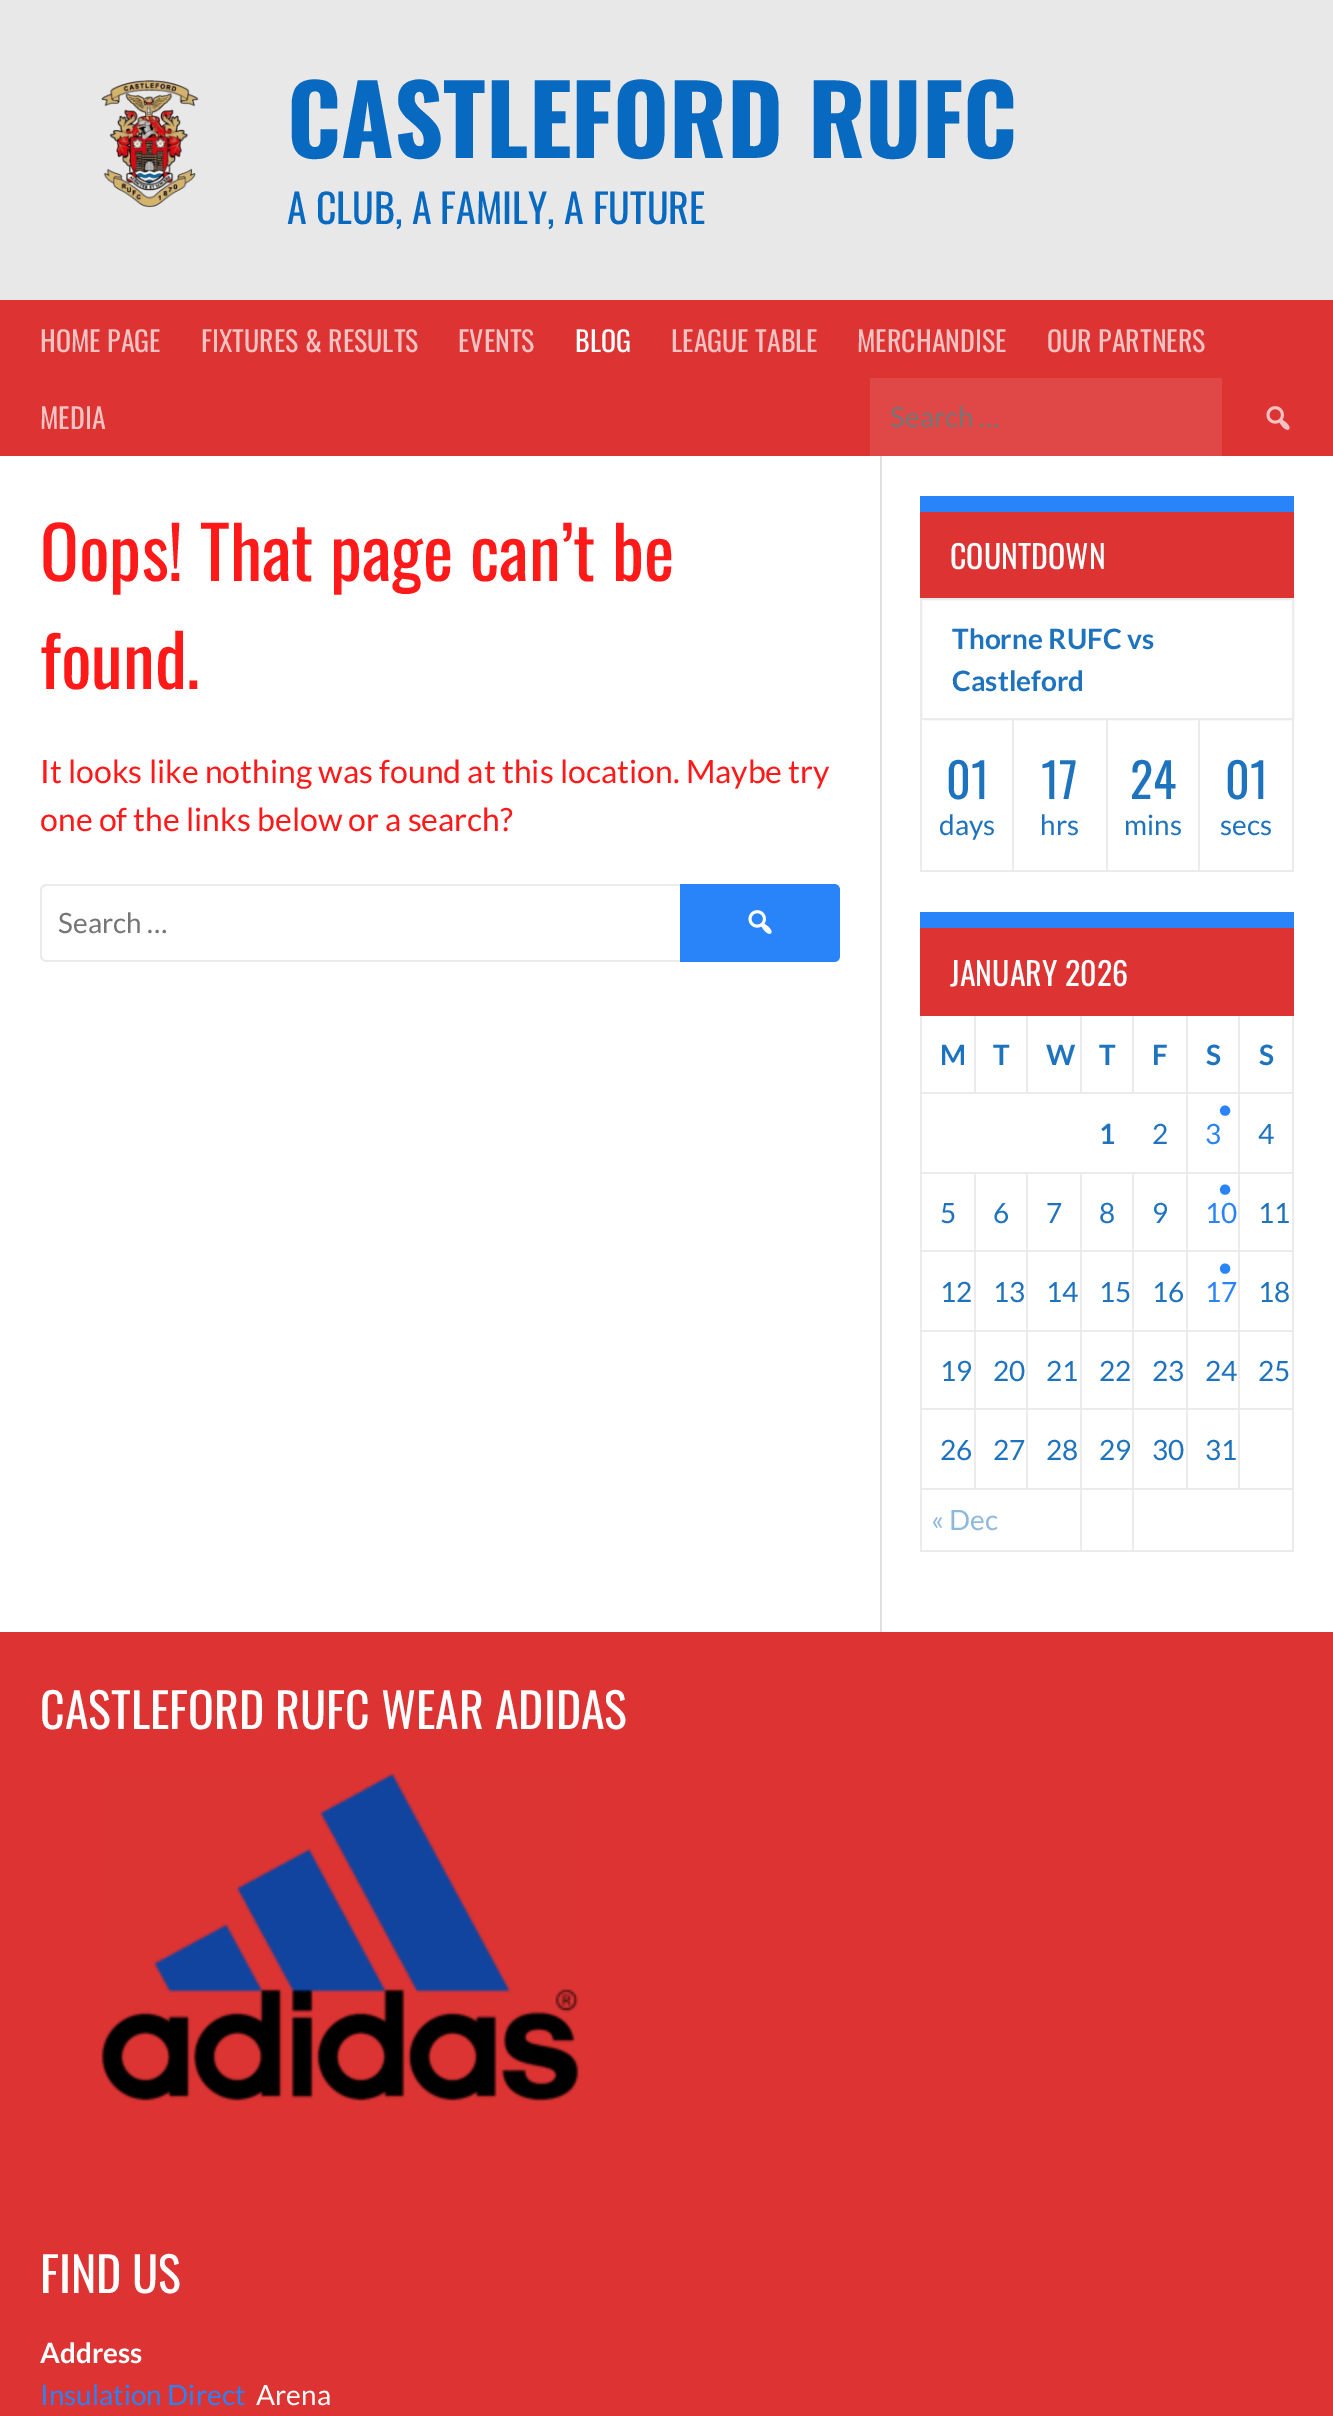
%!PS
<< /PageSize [1333 2416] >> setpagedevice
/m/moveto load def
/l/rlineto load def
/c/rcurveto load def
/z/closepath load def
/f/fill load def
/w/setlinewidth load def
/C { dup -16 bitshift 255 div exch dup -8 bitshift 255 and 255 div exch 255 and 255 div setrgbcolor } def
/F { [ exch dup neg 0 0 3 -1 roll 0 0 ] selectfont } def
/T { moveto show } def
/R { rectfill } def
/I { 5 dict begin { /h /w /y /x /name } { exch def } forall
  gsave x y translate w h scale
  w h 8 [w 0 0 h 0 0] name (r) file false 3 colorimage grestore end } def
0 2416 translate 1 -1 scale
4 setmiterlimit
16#E8E8E8 C
0 0 1333 2416 R
(1.rgb) 101 80 98 128 I
/Oswald-Bold 96 F
16#0769BF C
(CASTLEFORD RUFC) 287 158 T
/Oswald-Regular 40 F
(A CLUB, A FAMILY, A FUTURE) 287 224 T
16#DD3333 C
0 300 1333 156 R
/Oswald-Regular 28 F
16#F5C2C2 C
(HOME PAGE) 40 352 T
(FIXTURES & RESULTS) 201 352 T
(EVENTS) 458 352 T
16#FFFFFF C
(BLOG) 575 352 T
16#F5C2C2 C
(LEAGUE TABLE) 671 352 T
(MERCHANDISE) 857 352 T
(OUR PARTNERS) 1047 352 T
(MEDIA) 40 429 T
16#E04747 C
870 378 352 78 R
/Lato-Regular 28 F
16#757575 C
(Search …) 890 427 T
(2.rgb) 1266 406 24 24 I
16#FFFFFF C
0 456 1333 1176 R
/Oswald-Regular 72 F
16#FF1919 C
(Oops! That page can’t be) 40 581 T
(found.) 40 689 T
/Lato-Regular 32 F
(It looks like nothing was found at this location. Maybe try) 40 783 T
(one of the links below or a search?) 40 831 T
16#EBEBEB C
46 884 m 634 0 l 0 78 l -634 0 l -3 0 -6 -3 -6 -6 c 0 -66 l 0 -3 3 -6 6 -6 c z 46 886 m 634 0 l 0 74 l -634 0 l -2 0 -4 -2 -4 -4 c 0 -66 l 0 -2 2 -4 4 -4 c z eofill
/Lato-Regular 28 F
16#757575 C
(Search …) 58 933 T
16#2A84F9 C
680 884 m 154 0 l 3.5 0 6 2.5 6 6 c 0 66 l 0 3.5 -2.5 6 -6 6 c -154 0 l z f
(3.rgb) 748 910 24 24 I
16#E0E0E0 C
880 456 2 1176 R
16#DD3333 C
920 512 374 86 R
16#2A84F9 C
920 496 374 16 R
/Oswald-Regular 32 F
16#FFFFFF C
(COUNTDOWN) 950 569 T
16#EBEBEB C
1012 718 2 154 R
920 870 94 2 R
920 718 2 154 R
1106 718 2 154 R
1198 718 2 154 R
1292 718 2 154 R
2 w
921 599 372 120 rectstroke
/Lato-Bold 28 F
16#1E73BE C
(Thorne RUFC vs) 952 649 T
(Castleford) 952 691 T
/Oswald-Regular 48 F
(01) 946 799 T
/Lato-Regular 28 F
(days) 939 835 T
16#EBEBEB C
1014 870 94 2 R
/Oswald-Regular 48 F
16#1E73BE C
(17) 1041 799 T
/Lato-Regular 28 F
(hrs) 1040 835 T
16#EBEBEB C
1108 870 92 2 R
/Oswald-Regular 48 F
16#1E73BE C
(24) 1130 799 T
/Lato-Regular 28 F
(mins) 1124 835 T
16#EBEBEB C
1200 870 94 2 R
/Oswald-Regular 48 F
16#1E73BE C
(01) 1225 799 T
/Lato-Regular 28 F
(secs) 1220 835 T
16#EBEBEB C
1292 1016 2 536 R
920 1550 374 2 R
920 1016 2 536 R
1238 1092 56 2 R
1238 1172 56 2 R
1238 1250 56 2 R
1238 1330 56 2 R
1238 1408 56 2 R
1238 1488 56 2 R
1238 1408 2 82 R
1186 1408 54 2 R
1238 1330 2 80 R
1186 1330 54 2 R
1238 1250 2 82 R
1186 1250 54 2 R
1238 1172 2 80 R
1186 1172 54 2 R
1238 1092 2 82 R
1186 1092 54 2 R
1186 1488 54 2 R
1186 1408 2 82 R
1132 1408 56 2 R
1186 1330 2 80 R
1132 1330 56 2 R
1186 1250 2 82 R
1132 1250 56 2 R
1186 1172 2 80 R
1132 1172 56 2 R
1186 1092 2 82 R
920 1092 268 2 R
974 1014 2 80 R
1026 1014 2 80 R
1080 1014 2 80 R
1132 1014 2 80 R
1186 1014 2 80 R
1238 1014 2 80 R
16#DD3333 C
920 928 374 88 R
16#2A84F9 C
920 912 374 16 R
/Oswald-Regular 32 F
16#FFFFFF C
(JANUARY 2026) 950 986 T
/Lato-Bold 28 F
16#1E73BE C
(M) 940 1065 T
(T) 993 1065 T
(W) 1046 1065 T
(T) 1099 1065 T
(F) 1152 1065 T
(S) 1206 1065 T
(S) 1259 1065 T
(1) 1099 1144 T
/Lato-Regular 28 F
(2) 1152 1144 T
16#2A84F9 C
(•) 1217 1119 T
(3) 1205 1144 T
16#1E73BE C
(4) 1258 1144 T
16#EBEBEB C
1132 1488 56 2 R
1132 1408 2 82 R
1080 1408 54 2 R
1132 1330 2 80 R
1080 1330 54 2 R
1132 1250 2 82 R
1080 1250 54 2 R
1132 1172 2 80 R
1080 1172 54 2 R
1080 1488 54 2 R
1080 1408 2 82 R
1026 1408 56 2 R
1080 1330 2 80 R
1026 1330 56 2 R
1080 1250 2 82 R
1026 1250 56 2 R
1080 1172 2 80 R
1026 1172 56 2 R
1026 1488 56 2 R
1026 1408 2 82 R
974 1408 54 2 R
1026 1330 2 80 R
974 1330 54 2 R
1026 1250 2 82 R
974 1250 54 2 R
1026 1172 2 80 R
974 1172 54 2 R
974 1488 54 2 R
974 1408 2 82 R
920 1408 56 2 R
974 1330 2 80 R
920 1330 56 2 R
974 1250 2 82 R
920 1250 56 2 R
974 1172 2 80 R
920 1172 56 2 R
16#1E73BE C
(5) 940 1223 T
(6) 993 1223 T
(7) 1046 1223 T
(8) 1099 1223 T
(9) 1152 1223 T
16#2A84F9 C
(•) 1217 1198 T
(10) 1205 1223 T
16#1E73BE C
(11) 1258 1223 T
(12) 940 1302 T
(13) 993 1302 T
(14) 1046 1302 T
(15) 1099 1302 T
(16) 1152 1302 T
16#2A84F9 C
(•) 1217 1277 T
(17) 1205 1302 T
16#1E73BE C
(18) 1258 1302 T
(19) 940 1381 T
(20) 993 1381 T
(21) 1046 1381 T
(22) 1099 1381 T
(23) 1152 1381 T
(24) 1205 1381 T
(25) 1258 1381 T
16#EBEBEB C
920 1488 56 2 R
16#1E73BE C
(26) 940 1460 T
(27) 993 1460 T
(28) 1046 1460 T
(29) 1099 1460 T
(30) 1152 1460 T
(31) 1205 1460 T
16#8EB9DE C
(« Dec) 931 1530 T
16#EBEBEB C
1080 1488 2 64 R
1132 1488 2 64 R
16#DD3333 C
0 1632 1333 784 R
/Oswald-Regular 48 F
16#FFFFFF C
(CASTLEFORD RUFC WEAR ADIDAS) 40 1729 T
(4.rgb) 101 1773 478 329 I
(FIND US) 40 2293 T
/Lato-Bold 28 F
(Address) 40 2363 T
/Lato-Regular 28 F
16#2A84F9 C
(Insulation Direct) 40 2405 T
16#FFFFFF C
(Arena) 256 2405 T
showpage
